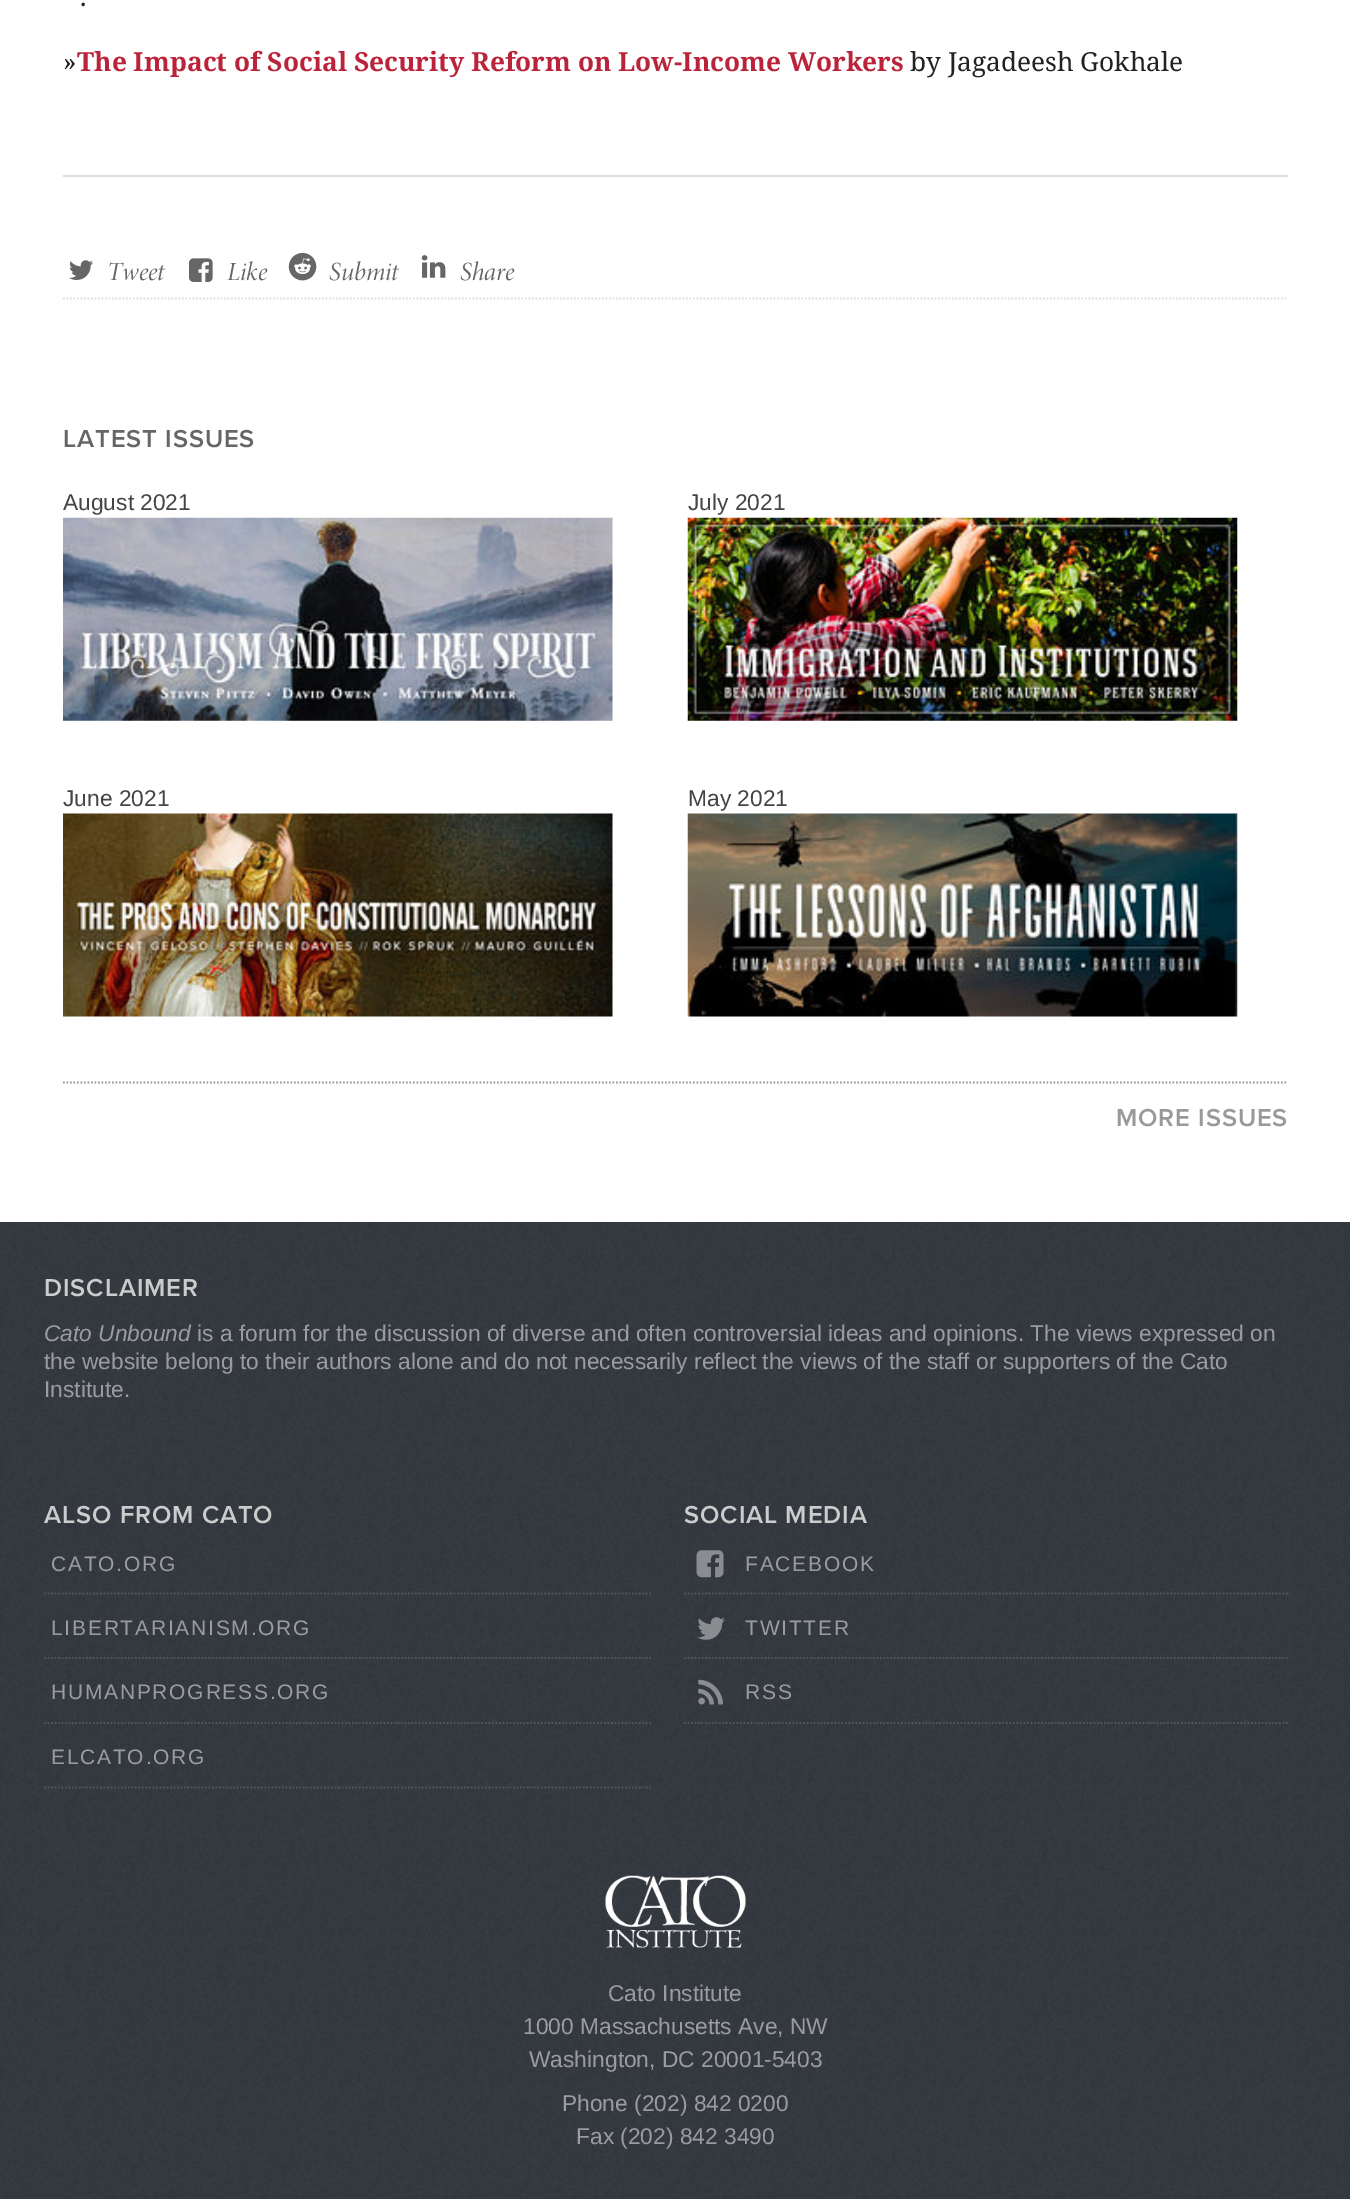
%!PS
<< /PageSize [1350 2199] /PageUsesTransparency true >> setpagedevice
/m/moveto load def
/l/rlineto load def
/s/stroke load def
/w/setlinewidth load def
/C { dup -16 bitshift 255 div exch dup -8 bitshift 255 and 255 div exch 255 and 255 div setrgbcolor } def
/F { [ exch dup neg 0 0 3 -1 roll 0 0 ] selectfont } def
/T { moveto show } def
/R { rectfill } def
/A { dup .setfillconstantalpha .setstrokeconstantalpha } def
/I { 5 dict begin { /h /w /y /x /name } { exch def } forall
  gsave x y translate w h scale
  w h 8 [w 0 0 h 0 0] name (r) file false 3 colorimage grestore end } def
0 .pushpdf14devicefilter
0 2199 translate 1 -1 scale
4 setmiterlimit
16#FFFFFF C
0 0 1350 2199 R
(1.rgb) 0 1222 1350 977 I
16#DDDDDD C
63 175 1225 2 R
/NotoSerif-Regular 26.25 F
16#222222 C
(.) 80 6 T
(») 63 71 T
/NotoSerif-Bold 26.25 F
16#BA2339 C
(The Impact of Social Security Reform on Low-Income Workers) 77 71 T
/NotoSerif-Regular 26.25 F
16#222222 C
(by Jagadeesh Gokhale) 910 71 T
16#DDDDDD C
1.8 w
[1.75 1.75] 0 setdash
63 298.5 m 1225 0 l s
(2.rgb) 69 260 24 20 I
/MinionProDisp-Italic 26.25 F
16#666666 C
(Tweet) 107 280 T
(3.rgb) 189 258 24 24 I
(Like) 227 280 T
(4.rgb) 288 252 29 29 I
(Submit) 329 280 T
(5.rgb) 421 255 25 23 I
(Share) 460 280 T
/ProximaNova-SemiBold 25.4 F
63 447 m .9 0 (LATEST ISSUES) ashow
/LiberationSans-Regular 22.75 F
16#444444 C
(August 2021) 63 510 T
(6.rgb) 63 517 550 204 I
(July 2021) 688 510 T
(7.rgb) 687 517 551 204 I
(June 2021) 63 806 T
(8.rgb) 63 813 550 204 I
(May 2021) 688 806 T
(9.rgb) 687 813 551 204 I
16#999999 C
63 1082.5 m 1225 0 l s
/ProximaNova-SemiBold 25.4 F
1116 1126 m .9 0 (MORE ISSUES) ashow
16#CCCCCC C
44 1296 m .9 0 (DISCLAIMER) ashow
/LiberationSans-Italic 22.75 F
16#9A9C9F C
(Cato Unbound) 44 1341 T
/LiberationSans-Regular 22.75 F
(is a forum for the discussion of diverse and often controversial ideas and opinions. The views expressed on) 197 1341 T
(the website belong to their authors alone and do not necessarily reflect the views of the staff or supporters of the Cato) 44 1369 T
(Institute.) 44 1397 T
/ProximaNova-SemiBold 25.4 F
16#CCCCCC C
44 1523 m .9 0 (ALSO FROM CATO) ashow
0.15 A
16#FFFFFF C
44 1593.5 m 607 0 l s
/LiberationSans-Regular 21 F
1 A
16#9A9C9F C
51 1571 m 1.75 0 (CATO.ORG) ashow
0.15 A
16#FFFFFF C
44 1658 m 607 0 l s
1 A
16#9A9C9F C
51 1635 m 1.75 0 (LIBERTARIANISM.ORG) ashow
0.15 A
16#FFFFFF C
44 1723 m 607 0 l s
1 A
16#9A9C9F C
51 1699 m 1.75 0 (HUMANPROGRESS.ORG) ashow
0.15 A
16#FFFFFF C
44 1787.5 m 607 0 l s
1 A
16#9A9C9F C
51 1764 m 1.75 0 (ELCATO.ORG) ashow
/ProximaNova-SemiBold 25.4 F
16#CCCCCC C
684 1523 m .9 0 (SOCIAL MEDIA) ashow
0.15 A
16#FFFFFF C
684 1593.5 m 606 0 l s
1 A
(10.rgb) 696 1550 28 28 I
/LiberationSans-Regular 21 F
16#9A9C9F C
745 1571 m 1.75 0 (FACEBOOK) ashow
0.15 A
16#FFFFFF C
684 1658 m 606 0 l s
1 A
(11.rgb) 697 1617 28 23 I
16#9A9C9F C
745 1635 m 1.75 0 (TWITTER) ashow
0.15 A
16#FFFFFF C
684 1723 m 606 0 l s
1 A
(12.rgb) 698 1679 25 26 I
16#9A9C9F C
745 1699 m 1.75 0 (RSS) ashow
(13.rgb) 605 1875 141 73 I
/LiberationSans-Regular 22.75 F
(Cato Institute) 608 2001 T
(1000 Massachusetts Ave, NW) 523 2034 T
(Washington, DC 20001-5403) 529 2067 T
(Phone \(202\) 842 0200) 562 2111 T
(Fax \(202\) 842 3490) 576 2144 T
.poppdf14devicefilter showpage
